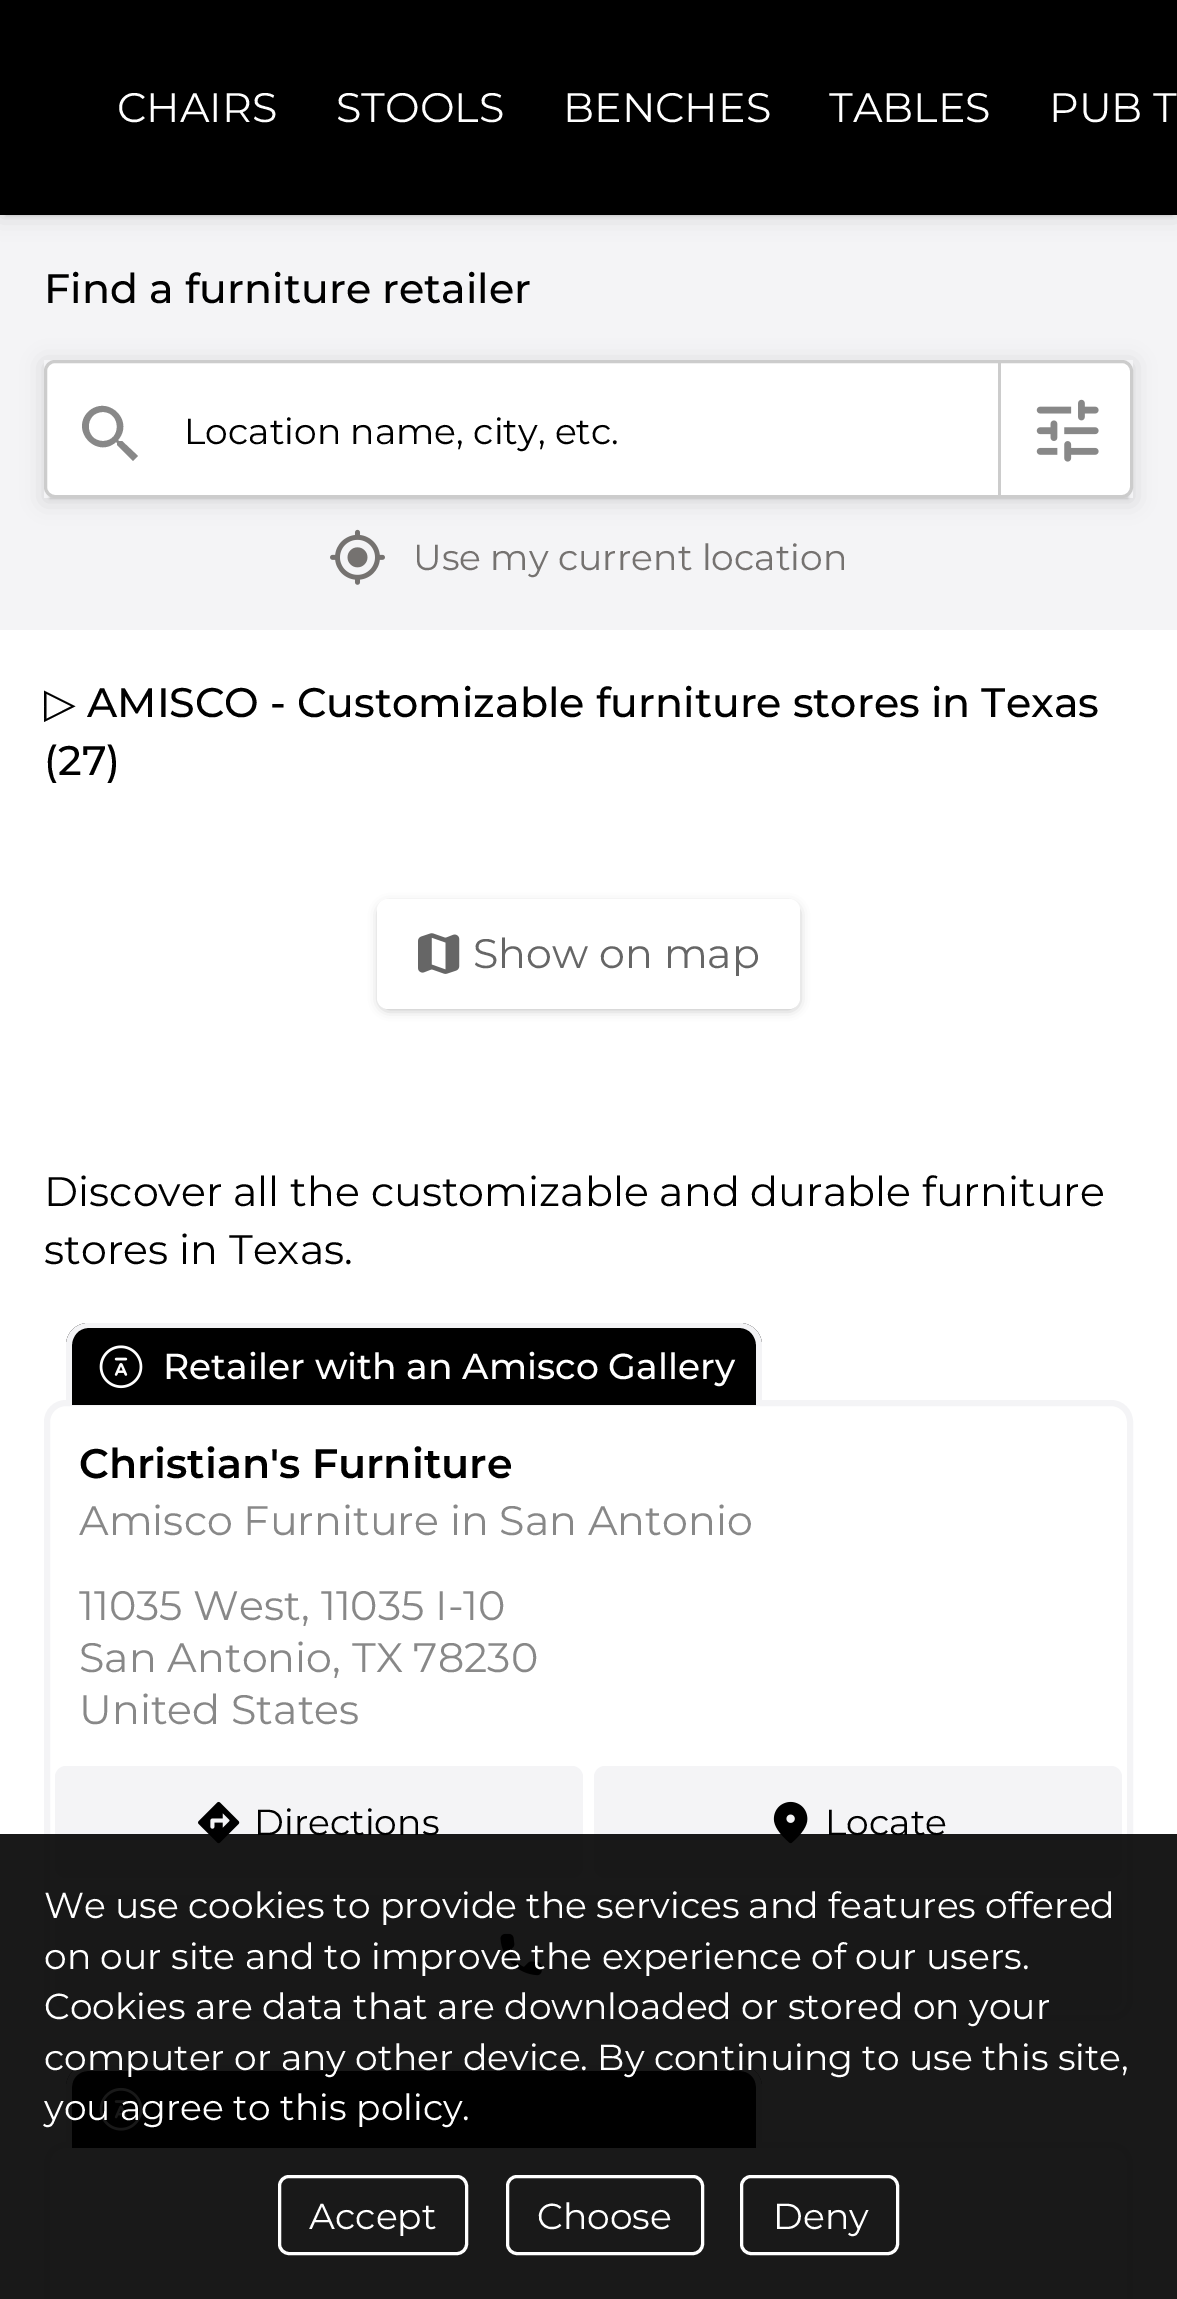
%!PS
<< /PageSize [1177 2299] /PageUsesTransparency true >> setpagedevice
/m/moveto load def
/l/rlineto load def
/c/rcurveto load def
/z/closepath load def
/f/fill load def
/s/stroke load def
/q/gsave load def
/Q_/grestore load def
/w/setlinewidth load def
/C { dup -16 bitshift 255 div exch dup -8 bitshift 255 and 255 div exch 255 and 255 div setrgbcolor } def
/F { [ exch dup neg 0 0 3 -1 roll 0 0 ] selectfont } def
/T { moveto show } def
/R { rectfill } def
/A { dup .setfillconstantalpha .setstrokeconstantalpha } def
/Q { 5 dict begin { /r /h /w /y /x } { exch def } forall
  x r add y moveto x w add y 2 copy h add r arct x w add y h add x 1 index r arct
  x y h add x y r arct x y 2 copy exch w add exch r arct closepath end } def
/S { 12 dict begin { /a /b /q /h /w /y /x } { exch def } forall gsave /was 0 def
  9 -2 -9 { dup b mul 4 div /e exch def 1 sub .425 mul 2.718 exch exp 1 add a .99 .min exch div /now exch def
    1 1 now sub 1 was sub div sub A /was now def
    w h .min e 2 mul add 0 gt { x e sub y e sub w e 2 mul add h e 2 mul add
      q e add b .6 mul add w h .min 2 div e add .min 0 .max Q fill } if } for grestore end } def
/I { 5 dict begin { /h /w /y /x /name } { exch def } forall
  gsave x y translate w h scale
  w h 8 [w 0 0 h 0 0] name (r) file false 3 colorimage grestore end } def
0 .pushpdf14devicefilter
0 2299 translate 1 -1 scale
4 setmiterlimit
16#F4F4F6 C
0 0 1177 2299 R
16#000000 C
0 3 1177 214 0 11 .12 S
6 11 1166 204 0 1.5 .2 S
0 0 1177 215 R
/Montserrat-Regular 41.25 F
16#FFFFFF C
(CHAIRS) 117 122 T
(STOOLS) 336 122 T
(BENCHES) 563 122 T
(TABLES) 829 122 T
(PUB T) 1049 122 T
/Montserrat-Medium 41.25 F
16#000000 C
(Find a furniture retailer) 44 303 T
(2.rgb) 330 529 55 56 I
q
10 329 m 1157 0 l 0 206 l -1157 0 l z 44 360 m 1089 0 l 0 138 l -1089 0 l z eoclip newpath
44 363 1089 138 0 11 .12 S
Q_
50 371 1078 127 0 1.5 .2 S
16#FFFFFF C
45.5 361.5 1086 135 9.5 Q q f Q_
16#CCCCCC C
3 w
s
16#888888 C
122 441 m -3 0 l -1 -1 l 17 -20 -11 -46 -30 -28 c -18 19 9 47 28 30 c 1 1 l 0 2 l 16 16 l 5 -5 l z 103 441 m -19 0 -19 -29 0 -29 c 18 0 19 29 0 29 c z f
/Montserrat-Regular 36.1 F
16#000000 C
(Location name, city, etc.) 184 444 T
16#CCCCCC C
998 360 3 138 R
(1.rgb) 1036 399 63 63 I
16#757270 C
(Use my current location) 413 570 T
16#FFFFFF C
0 630 1177 1669 R
/DejaVuSans-Regular 41.25 F
16#000000 C
(▷) 44 717 T
/Montserrat-Medium 41.25 F
(AMISCO - Customizable furniture stores in Texas) 87 717 T
(\(27\)) 44 775 T
380 905 418 104 8 5.5 .3 S
16#FFFFFF C
377 899 423 110 11 Q f
(3.rgb) 418 933 42 41 I
/Montserrat-Regular 41.25 F
16#666666 C
(Show on map) 473 968 T
16#000000 C
(Discover all the customizable and durable furniture) 44 1206 T
(stores in Texas.) 44 1264 T
16#F4F4F6 C
6 w
47 1403 1083 615 19 Q s
16#000000 C
88 1323 m 652 0 l 12 0 22 10 22 22 c 0 60 l -696 0 l 0 -60 l 0 -12 10 -22 22 -22 c z f
16#F4F4F6 C
88 1323 m 652 0 l 12 0 22 10 22 22 c 0 60 l -696 0 l 0 -60 l 0 -12 10 -22 22 -22 c z 88 1328 m 652 0 l 9 0 16 8 16 17 c 0 60 l -684 0 l 0 -60 l 0 -9 7 -17 16 -17 c z eofill
(4.rgb) 99 1345 44 44 I
/Montserrat-Medium 36.1 F
16#FFFFFF C
(Retailer with an Amisco Gallery) 163 1379 T
/Montserrat-SemiBold 41.25 F
16#000000 C
(Christian's Furniture) 79 1478 T
/Montserrat-Regular 41.25 F
16#888888 C
(Amisco Furniture in San Antonio) 79 1535 T
(11035 West, 11035 I-10) 79 1620 T
(San Antonio, TX 78230) 79 1672 T
(United States) 79 1724 T
16#F4F4F6 C
55 1766 528 112 11 Q f
(5.rgb) 198 1801 42 43 I
/Montserrat-Regular 36.1 F
16#000000 C
(Directions) 254 1835 T
16#F4F4F6 C
594 1766 528 112 11 Q f
(6.rgb) 773 1801 35 43 I
16#000000 C
(Locate) 825 1835 T
16#F4F4F6 C
55 1895 1067 115 11 Q f
(7.rgb) 500 1933 42 43 I
47 2145 1083 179 19 Q s
16#000000 C
88 2065 m 652 0 l 12 0 22 10 22 22 c 0 61 l -696 0 l 0 -61 l 0 -12 10 -22 22 -22 c z f
16#F4F4F6 C
88 2065 m 652 0 l 12 0 22 10 22 22 c 0 61 l -696 0 l 0 -61 l 0 -12 10 -22 22 -22 c z 88 2071 m 652 0 l 9 0 16 7 16 16 c 0 61 l -684 0 l 0 -61 l 0 -9 7 -16 16 -16 c z eofill
(8.rgb) 99 2087 44 44 I
0.9 A
16#000000 C
0 1834 1177 465 R
1 A
16#FFFFFF C
44 1918 m -.25 0 32 (We use cookies to provide the services and features offered) widthshow
(on our site and to improve the experience of our users.) 44 1969 T
44 2019 m -.1 0 32 (Cookies are data that are downloaded or stored on your) widthshow
44 2070 m -.1 0 32 (computer or any other device. By continuing to use this site,) widthshow
(you agree to this policy.) 44 2120 T
3 w
279.5 2176.5 187 77 9.5 Q s
(Accept) 309 2229 T
507.5 2176.5 195 77 9.5 Q s
(Choose) 537 2229 T
741.5 2176.5 156 77 9.5 Q s
(Deny) 773 2229 T
.poppdf14devicefilter showpage
